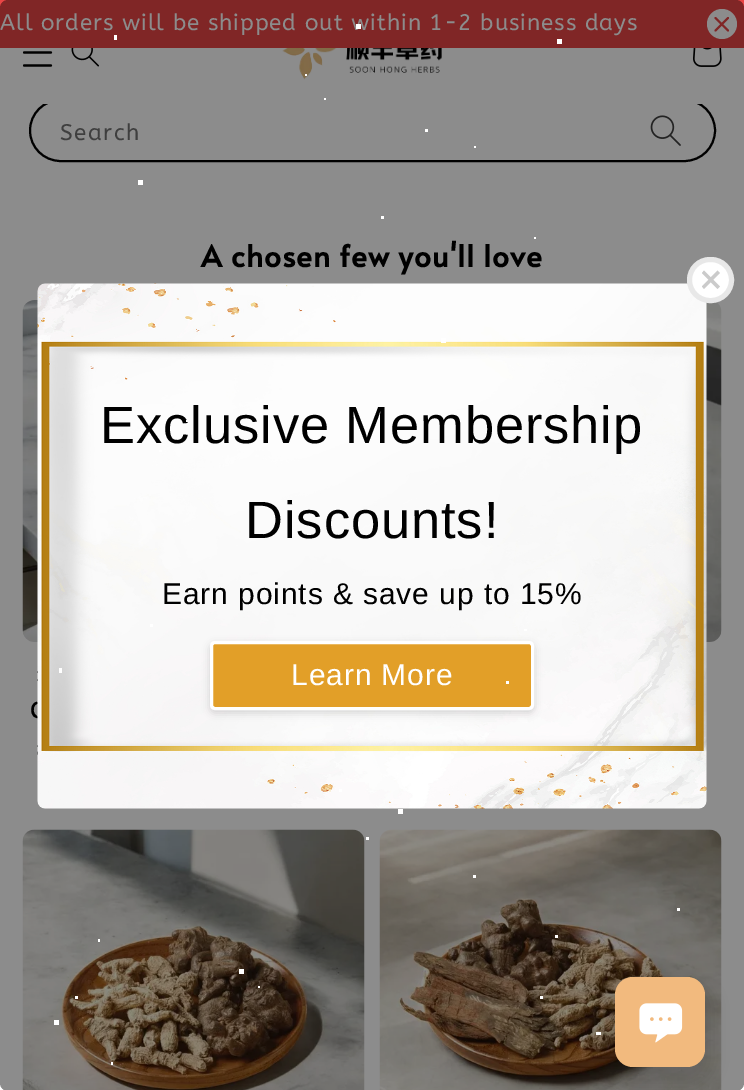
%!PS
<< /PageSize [744 1090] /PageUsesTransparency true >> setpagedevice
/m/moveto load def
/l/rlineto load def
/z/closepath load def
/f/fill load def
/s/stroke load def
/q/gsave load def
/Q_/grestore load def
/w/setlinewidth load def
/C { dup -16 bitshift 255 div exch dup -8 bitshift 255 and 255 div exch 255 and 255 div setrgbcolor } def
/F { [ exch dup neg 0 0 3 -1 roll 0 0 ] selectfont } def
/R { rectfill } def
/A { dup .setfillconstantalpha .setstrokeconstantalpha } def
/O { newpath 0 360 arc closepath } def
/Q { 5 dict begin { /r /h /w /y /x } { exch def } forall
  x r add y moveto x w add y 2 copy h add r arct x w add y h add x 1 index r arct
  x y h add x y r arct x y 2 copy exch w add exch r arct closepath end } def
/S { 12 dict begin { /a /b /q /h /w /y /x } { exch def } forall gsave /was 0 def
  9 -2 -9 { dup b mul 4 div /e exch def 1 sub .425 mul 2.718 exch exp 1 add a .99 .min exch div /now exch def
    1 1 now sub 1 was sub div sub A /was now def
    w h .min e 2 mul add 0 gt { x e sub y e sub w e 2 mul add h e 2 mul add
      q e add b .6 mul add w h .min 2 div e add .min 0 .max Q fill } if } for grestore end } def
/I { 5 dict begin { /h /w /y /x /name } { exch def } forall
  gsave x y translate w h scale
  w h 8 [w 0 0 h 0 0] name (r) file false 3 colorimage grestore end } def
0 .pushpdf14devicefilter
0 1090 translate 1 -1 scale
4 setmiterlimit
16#FFFFFF C
0 0 744 1090 R
16#E94545 C
0 0 744 48 R
/ABeeZee-Regular 22.5 F
16#FFFFFF C
0 30 m .9 0 (All orders will be shipped out within 1-2 business days) ashow
722 24 15 O f
16#E94545 C
2.1 w
1 setlinecap
1 setlinejoin
728 18 m -12.5 12.5 l 715.5 18 m 12.5 12.5 l s
16#000000 C
2 w
0 setlinecap
0 setlinejoin
30 100 685 61 30.5 Q s
16#FFFFFF C
43 99 659 5 R
(1.rgb) 23 51 30 16 I
(2.rgb) 71 48 28 19 I
(3.rgb) 282 48 160 32 I
(4.rgb) 693 48 29 19 I
16#737373 C
60 140 m 1.5 0 (Search) ashow
(5.rgb) 650 115 31 31 I
/Alata-Bold 30 F
16#000000 C
201 267 m .9 0 (A chosen few you'll love) ashow
(6.rgb) 706 302 16 340 I
(7.rgb) 22 300 16 342 I
/ABeeZee-Bold 22.5 F
30 718 m .9 0 (C) ashow
(8.rgb) 22 829 343 261 I
(9.rgb) 379 829 343 261 I
0.45 A
0 0 744 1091 8 Q f
1 A
16#FFFFFF C
356 24 5 5 R
114 35 3 5 R
557 39 5 5 R
305 74 2 2 R
324 98 2 2 R
425 129 3 3 R
474 146 2 2 R
138 180 5 5 R
381 216 3 3 R
534 237 2 2 R
(10.rgb) 37 283 670 526 I
441 338 5 5 R
689.5 259.5 42 41 20.5 Q q f Q_
16#E8E8E8 C
5 w
s
16#CBCBCB C
717.5 270.5 m 2.5 2.5 l -16 16 l -2 -2.5 l z f
702 273 m 2 -2.5 l 16 16 l -2.5 2.5 l z f
/LiberationSans-Regular 52.5 F
16#000000 C
100 443 m .9 0 (Exclusive Membership) ashow
245 538 m .9 0 (Discounts!) ashow
/LiberationSans-Regular 30 F
162 604 m .9 0 (Earn points & save up to 15%) ashow
210 644 324 69 5 4 .15 S
16#E29F28 C
211.5 642.5 321 66 3.5 Q q f Q_
16#FFFFFF C
3 w
s
291 685 m .9 0 (Learn More) ashow
186 420 2 2 R
159 450 3 2 R
150 624 3 3 R
524 629 3 2 R
59 668 3 5 R
506 681 3 3 R
339 789 3 3 R
398 809 5 5 R
366 837 3 3 R
473 875 3 3 R
677 908 3 3 R
555 935 3 3 R
98 939 2 3 R
239 969 5 5 R
16#000000 C
608 981 105 105 26 7.5 .1 S
16#F2BA7E C
615 977 90 90 18 Q f
(11.rgb) 639 1003 44 40 I
16#FFFFFF C
258 986 2 2 R
75 996 3 3 R
540 996 3 3 R
54 1020 5 5 R
596 1032 5 3 R
111 1062 2 3 R
.poppdf14devicefilter showpage
